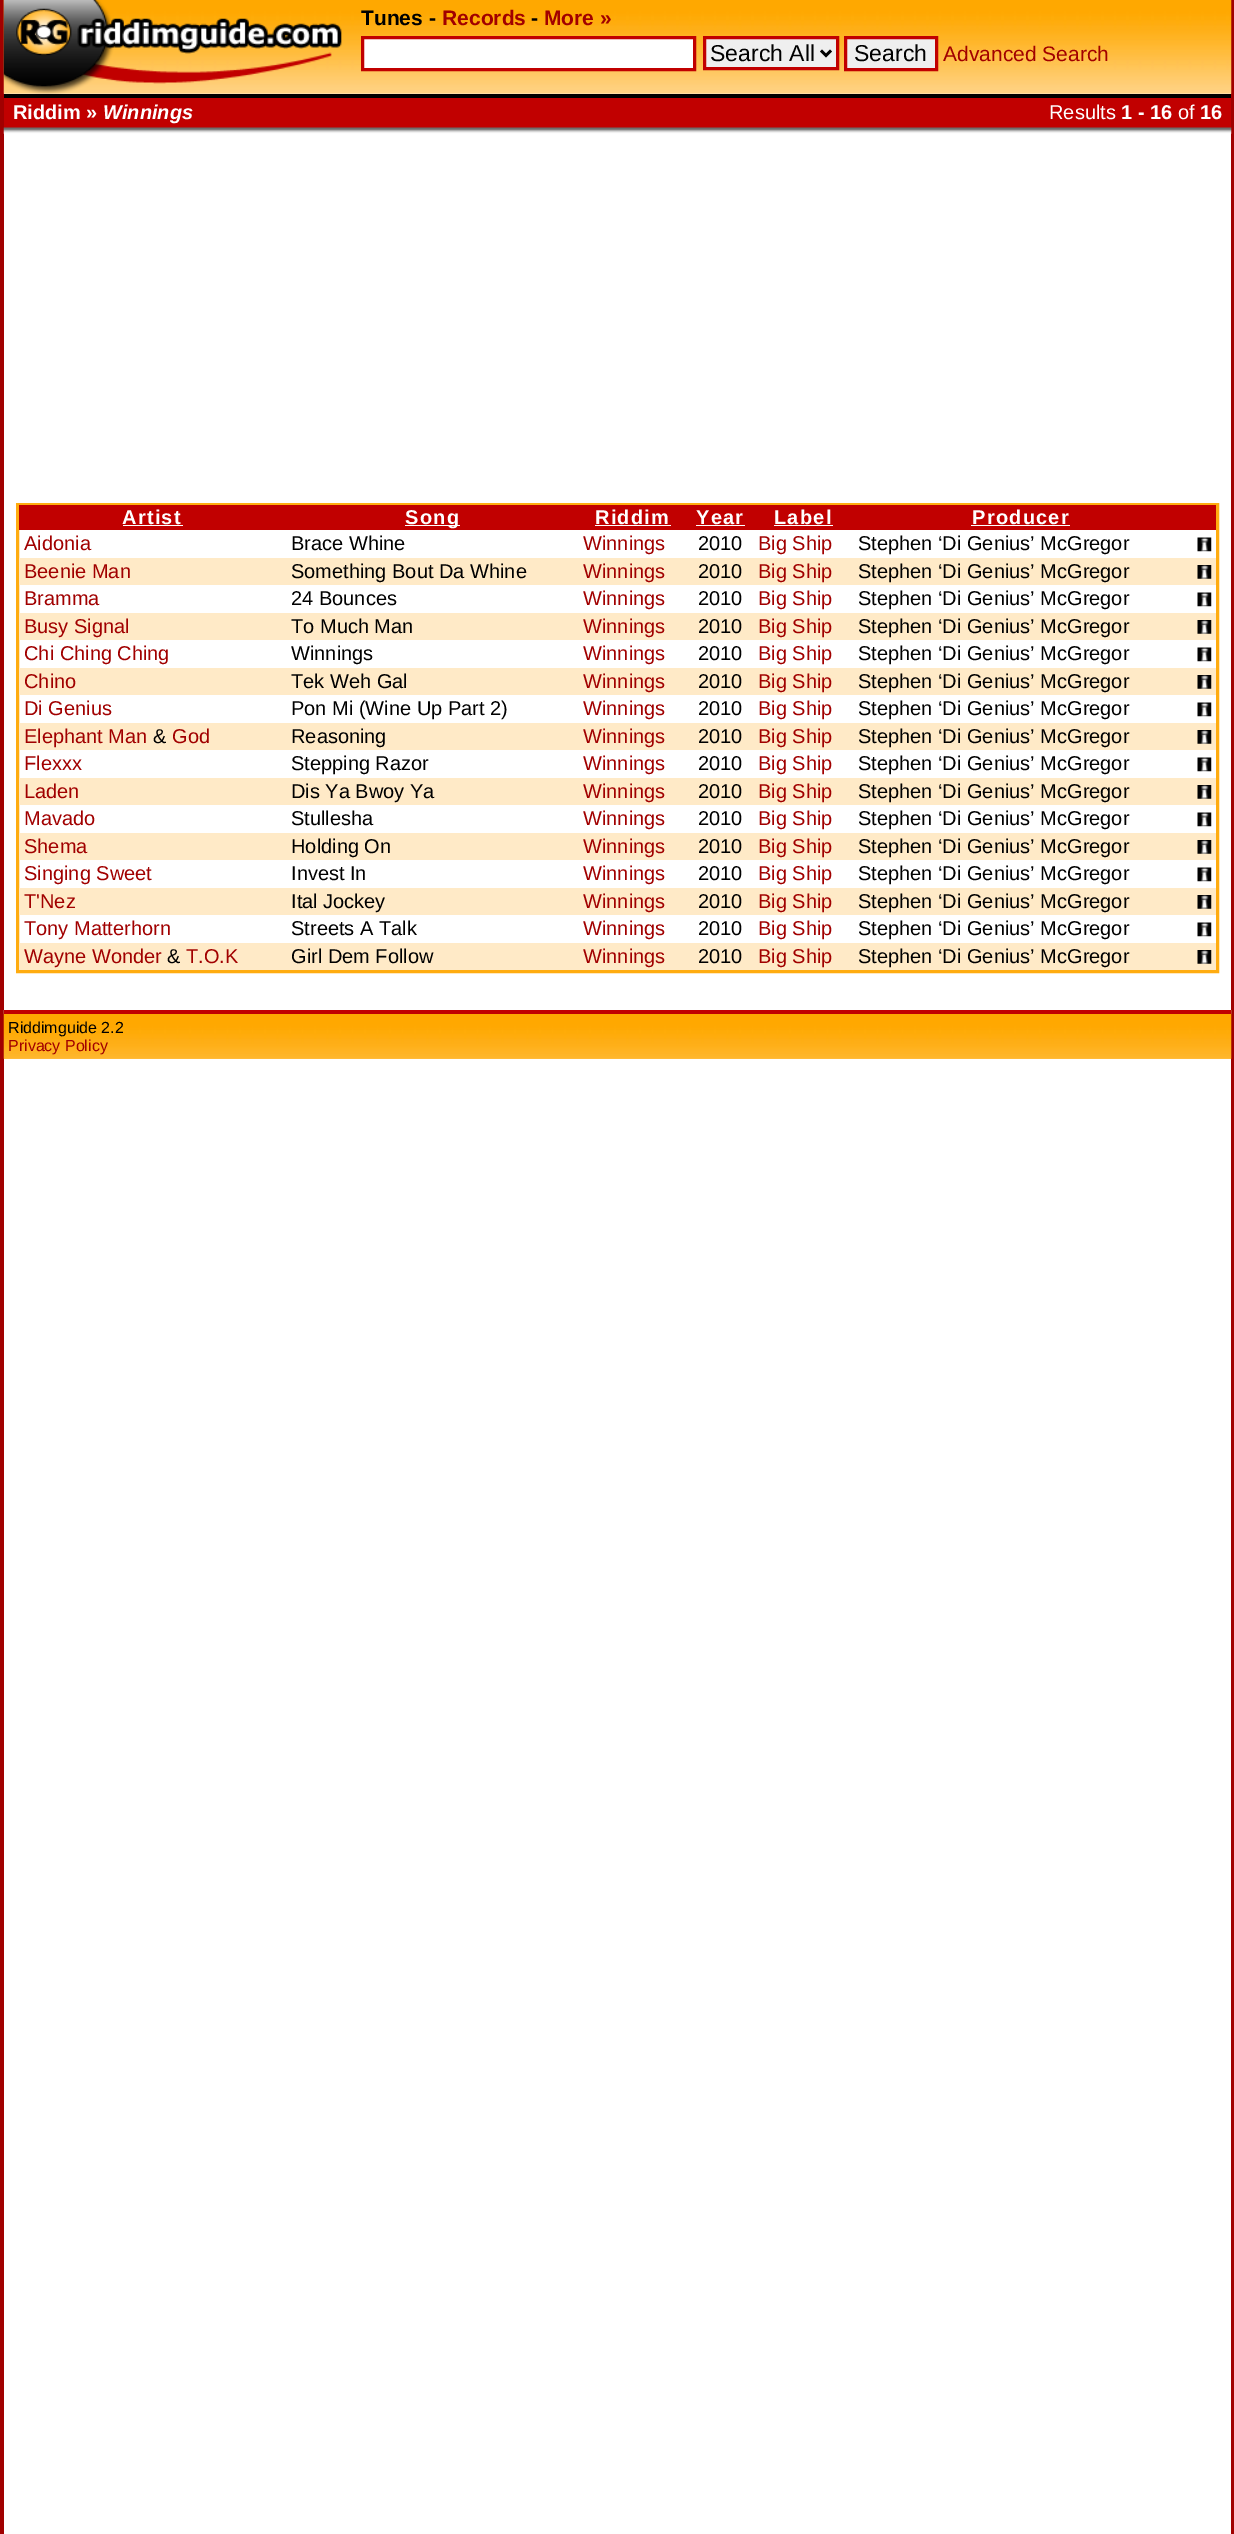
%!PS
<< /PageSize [1234 2534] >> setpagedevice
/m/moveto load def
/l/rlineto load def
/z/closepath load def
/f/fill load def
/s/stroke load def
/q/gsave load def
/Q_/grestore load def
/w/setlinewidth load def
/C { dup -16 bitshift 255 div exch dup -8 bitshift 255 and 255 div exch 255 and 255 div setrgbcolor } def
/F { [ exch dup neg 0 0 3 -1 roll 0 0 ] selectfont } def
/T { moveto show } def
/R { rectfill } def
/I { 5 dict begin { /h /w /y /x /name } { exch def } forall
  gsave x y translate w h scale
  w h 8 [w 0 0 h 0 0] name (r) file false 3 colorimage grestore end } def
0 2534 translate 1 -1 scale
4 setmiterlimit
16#FFFFFF C
0 0 1234 2534 R
16#A10000 C
1231 0 3 2534 R
0 0 4 2534 R
(1.rgb) 3 0 1229 94 I
(2.rgb) 3 0 339 94 I
/LiberationSans-Bold 21 F
16#000000 C
(Tunes -) 361 25 T
16#A10000 C
(Records) 442 25 T
16#000000 C
(-) 531 25 T
16#A10000 C
(More ») 544 25 T
16#FFFFFF C
362.5 37.5 m 332 0 l 0 32 l -332 0 l z q f Q_
16#C10000 C
3 w
s
16#EFEFEF C
704.5 37.5 m 133 0 l 0 31 l -133 0 l z q f Q_
16#C10000 C
s
16#000000 C
2.5 w
821 50.5 m 5 5 l 5 -5 l s
/LiberationSans-Regular 23 F
(Search All) 710 61 T
16#EFEFEF C
845.5 37.5 m 91 0 l 0 32 l -91 0 l z q f Q_
16#C10000 C
3 w
s
16#000000 C
(Search) 854 61 T
/LiberationSans-Regular 21 F
16#A10000 C
(Advanced Search) 943 61 T
16#C10000 C
4 98 1227 30 R
16#000000 C
4 94 1227 4 R
/LiberationSans-Bold 20 F
16#FFFFFF C
(Riddim ») 13 119 T
/LiberationSans-BoldItalic 20 F
(Winnings) 103 119 T
/LiberationSans-Regular 20 F
(Results) 1049 119 T
/LiberationSans-Bold 20 F
(1 - 16) 1121 119 T
/LiberationSans-Regular 20 F
(of) 1178 119 T
/LiberationSans-Bold 20 F
(16) 1200 119 T
(3.rgb) 3 127 1229 7 I
16#FFAC10 C
17.5 504.5 1200 467 rectstroke
16#C10000 C
19 505 1197 25 R
16#FFFFFF C
122 524 m 1.25 0 (Artist) ashow
123 525 60 1 R
405 525 55 1 R
405 524 m 1.25 0 (Song) ashow
595 524 m 1.25 0 (Riddim) ashow
595 525 76 1 R
696 524 m 1.25 0 (Year) ashow
696 525 49 1 R
774 524 m 1.25 0 (Label) ashow
774 525 59 1 R
972 524 m 1.25 0 (Producer) ashow
971 525 99 1 R
/LiberationSans-Regular 20 F
16#A10000 C
(Aidonia) 24 550 T
16#000000 C
(Brace Whine) 291 550 T
16#A10000 C
(Winnings) 583 550 T
16#000000 C
(2010) 698 550 T
16#A10000 C
(Big Ship) 758 550 T
16#000000 C
(Stephen ‘Di Genius’ McGregor) 858 550 T
(4.rgb) 1197 537 15 15 I
16#FFEAC7 C
19 558 1197 27 R
16#A10000 C
(Beenie Man) 24 578 T
16#000000 C
(Something Bout Da Whine) 291 578 T
16#A10000 C
(Winnings) 583 578 T
16#000000 C
(2010) 698 578 T
16#A10000 C
(Big Ship) 758 578 T
16#000000 C
(Stephen ‘Di Genius’ McGregor) 858 578 T
(5.rgb) 1197 565 15 14 I
16#A10000 C
(Bramma) 24 605 T
16#000000 C
(24 Bounces) 291 605 T
16#A10000 C
(Winnings) 583 605 T
16#000000 C
(2010) 698 605 T
16#A10000 C
(Big Ship) 758 605 T
16#000000 C
(Stephen ‘Di Genius’ McGregor) 858 605 T
(4.rgb) 1197 592 15 15 I
16#FFEAC7 C
19 613 1197 27 R
16#A10000 C
(Busy Signal) 24 633 T
16#000000 C
(To Much Man) 291 633 T
16#A10000 C
(Winnings) 583 633 T
16#000000 C
(2010) 698 633 T
16#A10000 C
(Big Ship) 758 633 T
16#000000 C
(Stephen ‘Di Genius’ McGregor) 858 633 T
(5.rgb) 1197 620 15 14 I
16#A10000 C
(Chi Ching Ching) 24 660 T
16#000000 C
(Winnings) 291 660 T
16#A10000 C
(Winnings) 583 660 T
16#000000 C
(2010) 698 660 T
16#A10000 C
(Big Ship) 758 660 T
16#000000 C
(Stephen ‘Di Genius’ McGregor) 858 660 T
(4.rgb) 1197 647 15 15 I
16#FFEAC7 C
19 668 1197 27 R
16#A10000 C
(Chino) 24 688 T
16#000000 C
(Tek Weh Gal) 291 688 T
16#A10000 C
(Winnings) 583 688 T
16#000000 C
(2010) 698 688 T
16#A10000 C
(Big Ship) 758 688 T
16#000000 C
(Stephen ‘Di Genius’ McGregor) 858 688 T
(5.rgb) 1197 675 15 14 I
16#A10000 C
(Di Genius) 24 715 T
16#000000 C
(Pon Mi \(Wine Up Part 2\)) 291 715 T
16#A10000 C
(Winnings) 583 715 T
16#000000 C
(2010) 698 715 T
16#A10000 C
(Big Ship) 758 715 T
16#000000 C
(Stephen ‘Di Genius’ McGregor) 858 715 T
(4.rgb) 1197 702 15 15 I
16#FFEAC7 C
19 723 1197 27 R
16#A10000 C
(Elephant Man) 24 743 T
16#000000 C
(&) 153 743 T
16#A10000 C
(God) 172 743 T
16#000000 C
(Reasoning) 291 743 T
16#A10000 C
(Winnings) 583 743 T
16#000000 C
(2010) 698 743 T
16#A10000 C
(Big Ship) 758 743 T
16#000000 C
(Stephen ‘Di Genius’ McGregor) 858 743 T
(5.rgb) 1197 730 15 14 I
16#A10000 C
(Flexxx) 24 770 T
16#000000 C
(Stepping Razor) 291 770 T
16#A10000 C
(Winnings) 583 770 T
16#000000 C
(2010) 698 770 T
16#A10000 C
(Big Ship) 758 770 T
16#000000 C
(Stephen ‘Di Genius’ McGregor) 858 770 T
(4.rgb) 1197 757 15 15 I
16#FFEAC7 C
19 778 1197 27 R
16#A10000 C
(Laden) 24 798 T
16#000000 C
(Dis Ya Bwoy Ya) 291 798 T
16#A10000 C
(Winnings) 583 798 T
16#000000 C
(2010) 698 798 T
16#A10000 C
(Big Ship) 758 798 T
16#000000 C
(Stephen ‘Di Genius’ McGregor) 858 798 T
(5.rgb) 1197 785 15 14 I
16#A10000 C
(Mavado) 24 825 T
16#000000 C
(Stullesha) 291 825 T
16#A10000 C
(Winnings) 583 825 T
16#000000 C
(2010) 698 825 T
16#A10000 C
(Big Ship) 758 825 T
16#000000 C
(Stephen ‘Di Genius’ McGregor) 858 825 T
(4.rgb) 1197 812 15 15 I
16#FFEAC7 C
19 833 1197 27 R
16#A10000 C
(Shema) 24 853 T
16#000000 C
(Holding On) 291 853 T
16#A10000 C
(Winnings) 583 853 T
16#000000 C
(2010) 698 853 T
16#A10000 C
(Big Ship) 758 853 T
16#000000 C
(Stephen ‘Di Genius’ McGregor) 858 853 T
(5.rgb) 1197 840 15 14 I
16#A10000 C
(Singing Sweet) 24 880 T
16#000000 C
(Invest In) 291 880 T
16#A10000 C
(Winnings) 583 880 T
16#000000 C
(2010) 698 880 T
16#A10000 C
(Big Ship) 758 880 T
16#000000 C
(Stephen ‘Di Genius’ McGregor) 858 880 T
(4.rgb) 1197 867 15 15 I
16#FFEAC7 C
19 888 1197 27 R
16#A10000 C
(T'Nez) 24 908 T
16#000000 C
(Ital Jockey) 291 908 T
16#A10000 C
(Winnings) 583 908 T
16#000000 C
(2010) 698 908 T
16#A10000 C
(Big Ship) 758 908 T
16#000000 C
(Stephen ‘Di Genius’ McGregor) 858 908 T
(5.rgb) 1197 895 15 14 I
16#A10000 C
(Tony Matterhorn) 24 935 T
16#000000 C
(Streets A Talk) 291 935 T
16#A10000 C
(Winnings) 583 935 T
16#000000 C
(2010) 698 935 T
16#A10000 C
(Big Ship) 758 935 T
16#000000 C
(Stephen ‘Di Genius’ McGregor) 858 935 T
(4.rgb) 1197 922 15 15 I
16#FFEAC7 C
19 943 1197 27 R
16#A10000 C
(Wayne Wonder) 24 963 T
16#000000 C
(&) 167 963 T
16#A10000 C
(T.O.K) 186 963 T
16#000000 C
(Girl Dem Follow) 291 963 T
16#A10000 C
(Winnings) 583 963 T
16#000000 C
(2010) 698 963 T
16#A10000 C
(Big Ship) 758 963 T
16#000000 C
(Stephen ‘Di Genius’ McGregor) 858 963 T
(5.rgb) 1197 950 15 14 I
(6.rgb) 3 1010 1229 49 I
16#C10000 C
4 1010 1227 4 R
/LiberationSans-Regular 16 F
16#000000 C
(Riddimguide 2.2) 8 1033 T
16#A10000 C
(Privacy Policy) 8 1051 T
showpage
